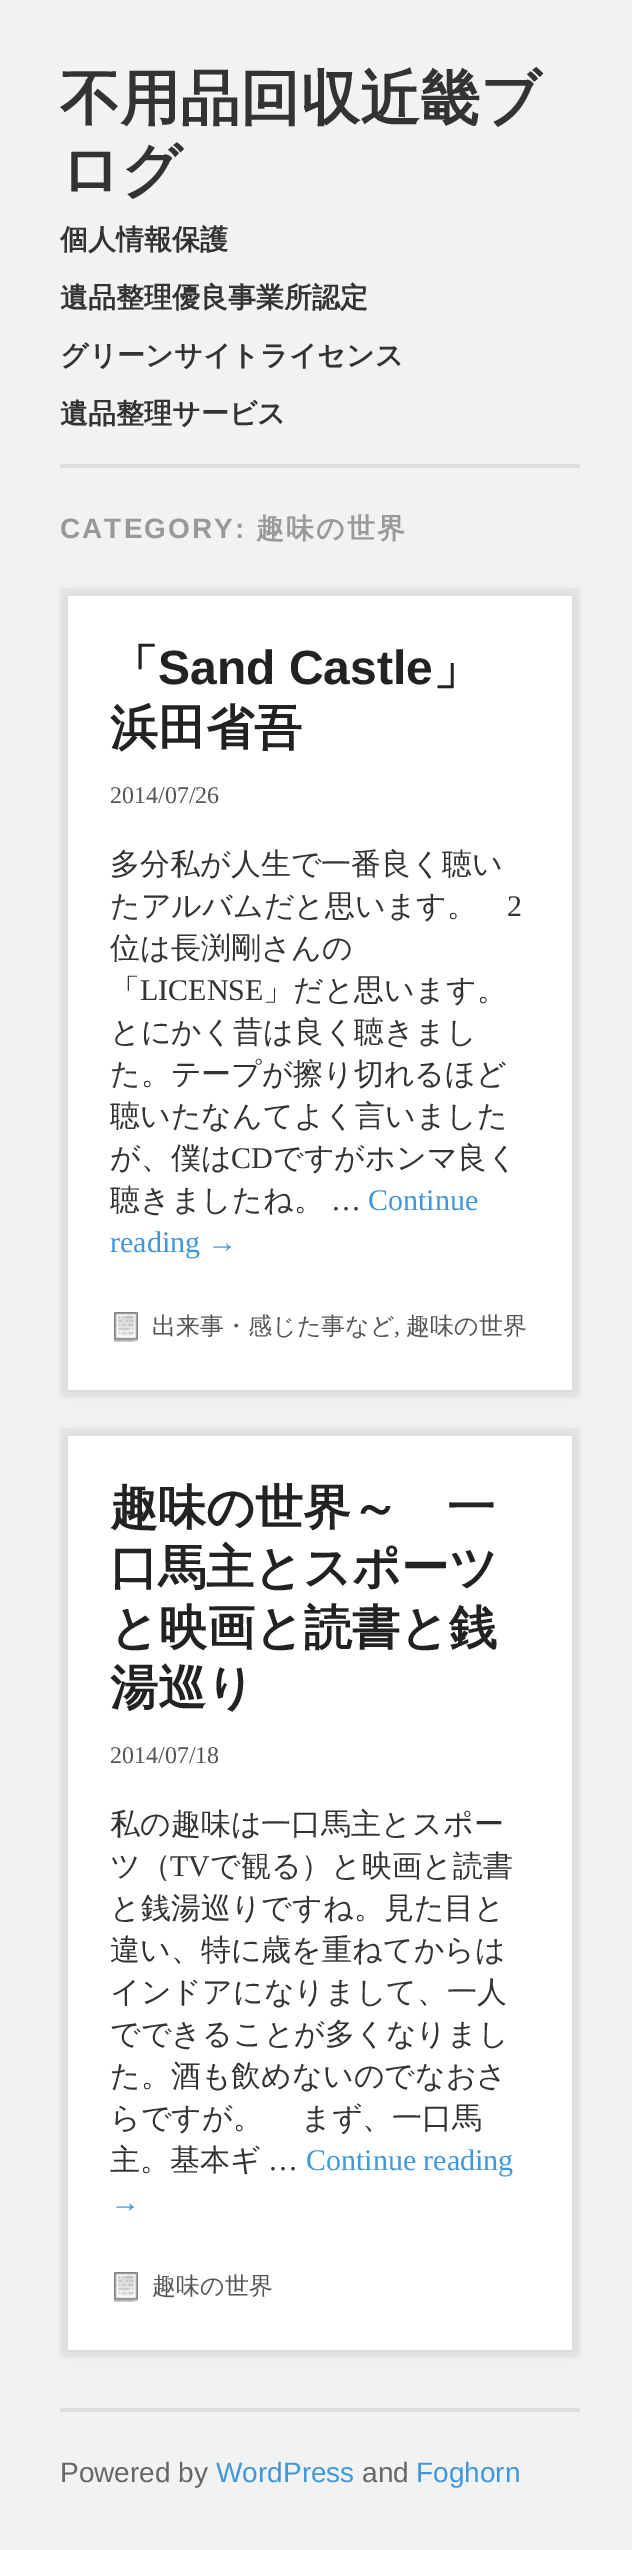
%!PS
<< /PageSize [632 2550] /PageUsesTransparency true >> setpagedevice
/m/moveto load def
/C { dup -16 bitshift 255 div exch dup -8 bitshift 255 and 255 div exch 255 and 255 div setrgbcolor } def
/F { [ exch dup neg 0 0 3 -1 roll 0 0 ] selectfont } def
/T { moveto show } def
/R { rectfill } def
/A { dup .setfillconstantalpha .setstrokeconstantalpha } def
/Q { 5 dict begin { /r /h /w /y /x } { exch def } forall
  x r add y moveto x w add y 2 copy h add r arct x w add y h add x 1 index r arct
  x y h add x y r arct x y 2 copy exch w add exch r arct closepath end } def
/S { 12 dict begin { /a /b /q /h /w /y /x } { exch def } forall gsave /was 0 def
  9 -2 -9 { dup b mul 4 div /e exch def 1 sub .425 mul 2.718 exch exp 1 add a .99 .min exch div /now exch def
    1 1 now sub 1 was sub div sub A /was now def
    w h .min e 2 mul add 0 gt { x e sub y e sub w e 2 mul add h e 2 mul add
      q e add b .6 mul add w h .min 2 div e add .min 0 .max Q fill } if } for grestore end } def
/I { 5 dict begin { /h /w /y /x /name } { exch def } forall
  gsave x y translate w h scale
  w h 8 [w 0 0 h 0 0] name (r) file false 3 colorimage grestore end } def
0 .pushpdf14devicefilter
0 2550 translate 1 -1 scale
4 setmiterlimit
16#F2F2F2 C
0 0 632 2550 R
16#DFDFDF C
60 464 520 4 R
/WenQuanYiZenHei-Bold 60 F
16#333333 C
(不用品回収近畿ブ) 60 119 T
(ログ) 60 191 T
/WenQuanYiZenHei-Bold 28 F
(個人情報保護) 60 249 T
(遺品整理優良事業所認定) 60 307 T
(グリーンサイトライセンス) 60 365 T
(遺品整理サービス) 60 423 T
/LiberationSans-Bold 28 F
16#999999 C
60 538 m 2 0 (CATEGORY:) ashow
/WenQuanYiZenHei-Bold 28 F
256 538 m 2 0 (趣味の世界) ashow
16#E9E9E9 C
60 588 520 810 R
16#000000 C
68 596 504 794 0 8 .1 S
16#FFFFFF C
68 596 504 794 R
/WenQuanYiZenHei-Bold 48 F
16#222222 C
(「) 110 684 T
/LiberationSans-Bold 48 F
(Sand Castle) 158 684 T
/WenQuanYiZenHei-Bold 48 F
(」) 433 684 T
(浜田省吾) 110 744 T
/LiberationSerif-Regular 24 F
16#555555 C
(2014/07/26) 110 803 T
/WenQuanYiZenHei-Medium 30 F
16#333333 C
(多分私が人生で一番良く聴い) 110 874 T
(たアルバムだと思います。) 110 916 T
/LiberationSerif-Regular 30 F
(2) 507 916 T
/WenQuanYiZenHei-Medium 30 F
(位は長渕剛さんの) 110 958 T
(「) 110 1000 T
/LiberationSerif-Regular 30 F
(LICENSE) 140 1000 T
/WenQuanYiZenHei-Medium 30 F
(」だと思います。) 263 1000 T
(とにかく昔は良く聴きまし) 110 1042 T
(た。テープが擦り切れるほど) 110 1084 T
(聴いたなんてよく言いました) 110 1126 T
(が、僕は) 110 1168 T
/LiberationSerif-Regular 30 F
(CD) 231 1168 T
/WenQuanYiZenHei-Medium 30 F
(ですがホンマ良く) 273 1168 T
(聴きましたね。) 110 1210 T
/LiberationSerif-Regular 30 F
(…) 331 1210 T
16#3F98DB C
(Continue) 368 1210 T
(reading →) 110 1252 T
(1.rgb) 114 1312 24 30 I
/WenQuanYiZenHei-Medium 24 F
16#555555 C
(出来事・感じた事など) 152 1334 T
/LiberationSerif-Regular 24 F
(,) 394 1334 T
/WenQuanYiZenHei-Medium 24 F
(趣味の世界) 406 1334 T
16#E9E9E9 C
60 1428 520 930 R
16#000000 C
68 1436 504 914 0 8 .1 S
16#FFFFFF C
68 1436 504 914 R
/WenQuanYiZenHei-Bold 48 F
16#222222 C
(趣味の世界～　一) 110 1524 T
(口馬主とスポーツ) 110 1584 T
(と映画と読書と銭) 110 1644 T
(湯巡り) 110 1704 T
/LiberationSerif-Regular 24 F
16#555555 C
(2014/07/18) 110 1763 T
/WenQuanYiZenHei-Medium 30 F
16#333333 C
(私の趣味は一口馬主とスポー) 110 1834 T
(ツ（) 110 1876 T
/LiberationSerif-Regular 30 F
(TV) 170 1876 T
/WenQuanYiZenHei-Medium 30 F
(で観る）と映画と読書) 210 1876 T
(と銭湯巡りですね。見た目と) 110 1918 T
(違い、特に歳を重ねてからは) 110 1960 T
(インドアになりまして、一人) 110 2002 T
(でできることが多くなりまし) 110 2044 T
(た。酒も飲めないのでなおさ) 110 2086 T
110 2128 m -1 0 32 (らですが。 　まず、一口馬) widthshow
(主。基本ギ) 110 2170 T
/LiberationSerif-Regular 30 F
(…) 268 2170 T
16#3F98DB C
(Continue reading) 306 2170 T
(→) 110 2212 T
(1.rgb) 114 2272 24 30 I
/WenQuanYiZenHei-Medium 24 F
16#555555 C
(趣味の世界) 152 2294 T
16#DFDFDF C
60 2408 520 4 R
/LiberationSans-Regular 28 F
16#666666 C
(Powered by) 60 2482 T
16#3F98DB C
(WordPress) 216 2482 T
16#666666 C
(and) 362 2482 T
16#3F98DB C
(Foghorn) 416 2482 T
.poppdf14devicefilter showpage
